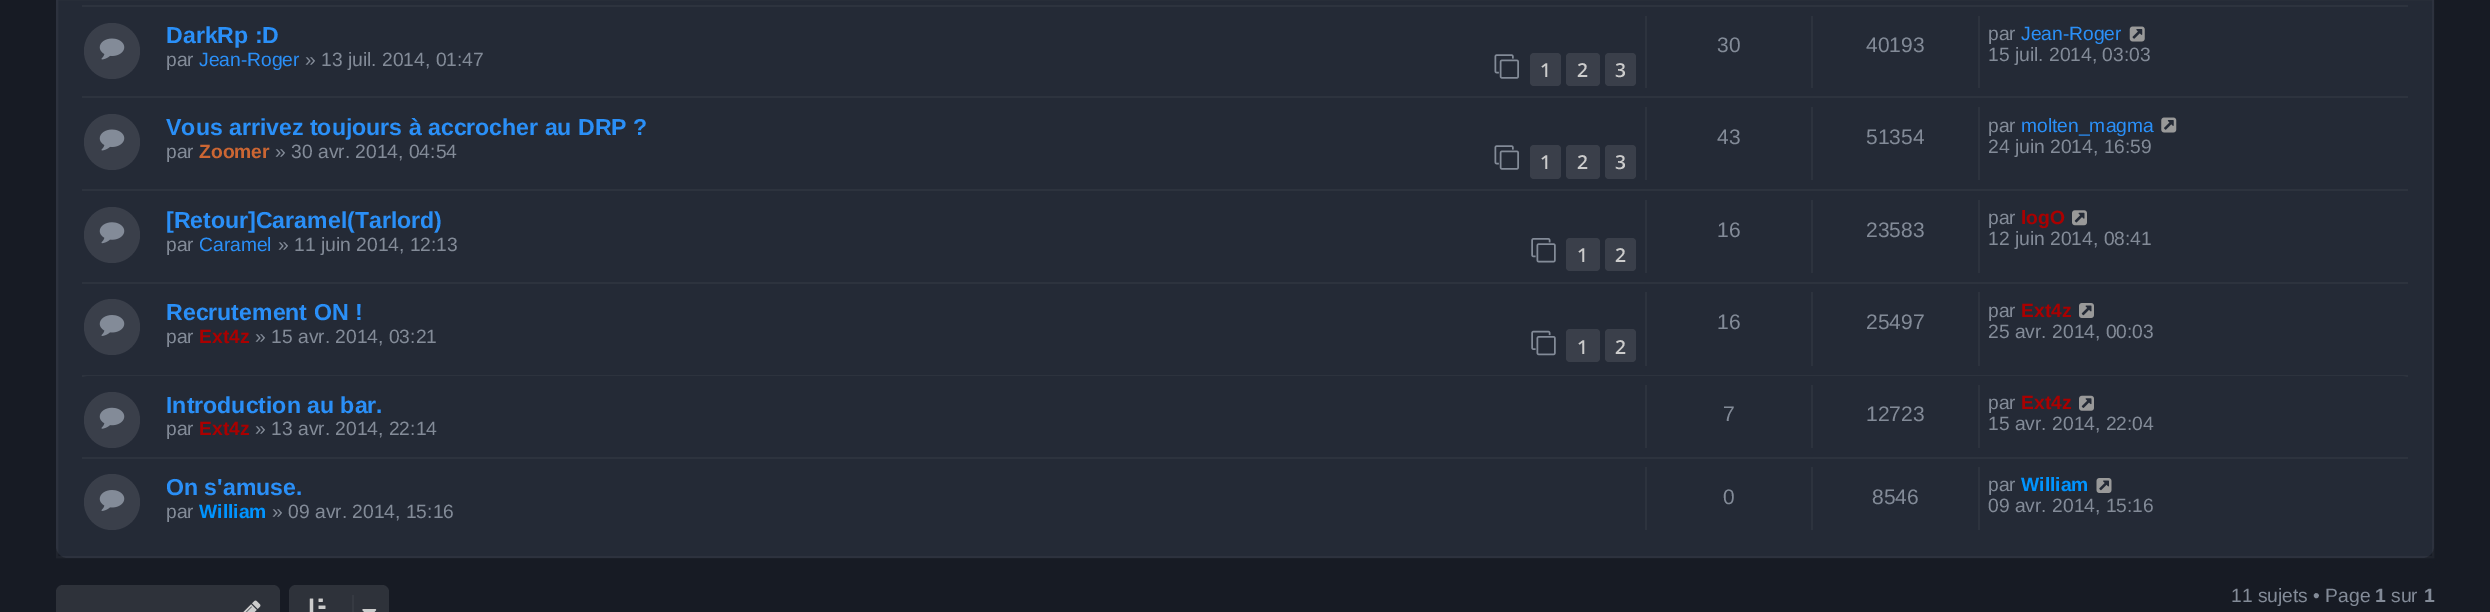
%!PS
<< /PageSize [2490 612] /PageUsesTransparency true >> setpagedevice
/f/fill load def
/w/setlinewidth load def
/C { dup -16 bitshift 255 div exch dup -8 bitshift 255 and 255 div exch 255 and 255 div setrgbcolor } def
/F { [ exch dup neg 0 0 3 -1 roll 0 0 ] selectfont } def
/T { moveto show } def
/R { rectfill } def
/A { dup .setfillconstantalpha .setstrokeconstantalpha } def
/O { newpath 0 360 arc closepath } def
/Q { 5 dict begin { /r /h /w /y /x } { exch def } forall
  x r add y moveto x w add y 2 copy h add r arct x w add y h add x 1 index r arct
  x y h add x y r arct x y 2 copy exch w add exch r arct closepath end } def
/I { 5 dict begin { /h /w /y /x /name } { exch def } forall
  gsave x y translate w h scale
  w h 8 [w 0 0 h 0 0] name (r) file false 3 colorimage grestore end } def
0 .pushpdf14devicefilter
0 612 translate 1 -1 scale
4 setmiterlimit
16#171B24 C
0 0 2490 612 R
16#242A36 C
56 -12 2378 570 12 Q f
0.04 A
16#FFFFFF C
2 w
57 -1 2376 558 rectstroke
1 A
16#2D333E C
82 5 2326 2 R
82 96 2326 2 R
16#3A3F4A C
112 51 28 O f
(1.rgb) 99 38 26 22 I
/LiberationSans-Bold 23.1 F
16#2A8FF7 C
(DarkRp :D) 166 43 T
/LiberationSans-Regular 19.25 F
16#838B98 C
(par) 166 66 T
16#2A8FF7 C
(Jean-Roger) 199 66 T
16#838B98 C
(» 13 juil. 2014, 01:47) 305 66 T
(2.rgb) 1494 54 25 25 I
16#3A3F4A C
1530 53 31 33 4 Q f
/OpenSans-SemiBold 19.25 F
16#CCCCCC C
(1) 1540 77 T
16#3A3F4A C
1566 53 34 33 4 Q f
16#CCCCCC C
(2) 1577 77 T
16#3A3F4A C
1605 53 31 33 4 Q f
16#CCCCCC C
(3) 1615 77 T
16#2D333E C
1645 16 2 72 R
/LiberationSans-Regular 21 F
16#838B98 C
(30) 1717 52 T
16#2D333E C
1811 16 2 72 R
16#838B98 C
(40193) 1866 52 T
16#2D333E C
1978 16 2 72 R
/LiberationSans-Regular 19.25 F
16#838B98 C
(par) 1988 40 T
16#2A8FF7 C
(Jean-Roger) 2021 40 T
(3.rgb) 2129 26 16 16 I
16#838B98 C
(15 juil. 2014, 03:03) 1988 61 T
16#2D333E C
82 189 2326 2 R
16#3A3F4A C
112 142 28 O f
(1.rgb) 99 129 26 22 I
/LiberationSans-Bold 23.1 F
16#2A8FF7 C
(Vous arrivez toujours à accrocher au DRP ?) 166 135 T
/LiberationSans-Regular 19.25 F
16#838B98 C
(par) 166 158 T
/LiberationSans-Bold 19.25 F
16#CC6633 C
(Zoomer) 199 158 T
/LiberationSans-Regular 19.25 F
16#838B98 C
(» 30 avr. 2014, 04:54) 275 158 T
(2.rgb) 1494 145 25 25 I
16#3A3F4A C
1530 145 31 34 4 Q f
/OpenSans-SemiBold 19.25 F
16#CCCCCC C
(1) 1540 169 T
16#3A3F4A C
1566 145 34 34 4 Q f
16#CCCCCC C
(2) 1577 169 T
16#3A3F4A C
1605 145 31 34 4 Q f
16#CCCCCC C
(3) 1615 169 T
16#2D333E C
1645 107 2 73 R
/LiberationSans-Regular 21 F
16#838B98 C
(43) 1717 144 T
16#2D333E C
1811 107 2 73 R
16#838B98 C
(51354) 1866 144 T
16#2D333E C
1978 107 2 73 R
/LiberationSans-Regular 19.25 F
16#838B98 C
(par) 1988 132 T
16#2A8FF7 C
(molten_magma) 2021 132 T
(4.rgb) 2161 117 16 16 I
16#838B98 C
(24 juin 2014, 16:59) 1988 153 T
16#2D333E C
82 282 2326 2 R
16#3A3F4A C
112 235 28 O f
(5.rgb) 99 222 26 22 I
/LiberationSans-Bold 23.1 F
16#2A8FF7 C
([Retour]Caramel\(Tarlord\)) 166 228 T
/LiberationSans-Regular 19.25 F
16#838B98 C
(par) 166 251 T
16#2A8FF7 C
(Caramel) 199 251 T
16#838B98 C
(» 11 juin 2014, 12:13) 278 251 T
(6.rgb) 1531 238 25 25 I
16#3A3F4A C
1566 238 34 33 4 Q f
/OpenSans-SemiBold 19.25 F
16#CCCCCC C
(1) 1577 262 T
16#3A3F4A C
1605 238 31 33 4 Q f
16#CCCCCC C
(2) 1615 262 T
16#2D333E C
1645 200 2 73 R
/LiberationSans-Regular 21 F
16#838B98 C
(16) 1717 237 T
16#2D333E C
1811 200 2 73 R
16#838B98 C
(23583) 1866 237 T
16#2D333E C
1978 200 2 73 R
/LiberationSans-Regular 19.25 F
16#838B98 C
(par) 1988 224 T
/LiberationSans-Bold 19.25 F
16#AA0000 C
(logO) 2021 224 T
(7.rgb) 2072 210 15 16 I
/LiberationSans-Regular 19.25 F
16#838B98 C
(12 juin 2014, 08:41) 1988 245 T
16#2D333E C
82 375 2326 2 R
16#3A3F4A C
112 327 28 O f
(8.rgb) 99 315 26 21 I
/LiberationSans-Bold 23.1 F
16#2A8FF7 C
(Recrutement ON !) 166 320 T
/LiberationSans-Regular 19.25 F
16#838B98 C
(par) 166 343 T
/LiberationSans-Bold 19.25 F
16#AA0000 C
(Ext4z) 199 343 T
/LiberationSans-Regular 19.25 F
16#838B98 C
(» 15 avr. 2014, 03:21) 255 343 T
(9.rgb) 1531 330 25 26 I
16#3A3F4A C
1566 329 34 33 4 Q f
/OpenSans-SemiBold 19.25 F
16#CCCCCC C
(1) 1577 354 T
16#3A3F4A C
1605 329 31 33 4 Q f
16#CCCCCC C
(2) 1615 354 T
16#2D333E C
1645 292 2 74 R
/LiberationSans-Regular 21 F
16#838B98 C
(16) 1717 329 T
16#2D333E C
1811 292 2 74 R
16#838B98 C
(25497) 1866 329 T
16#2D333E C
1978 292 2 74 R
/LiberationSans-Regular 19.25 F
16#838B98 C
(par) 1988 317 T
/LiberationSans-Bold 19.25 F
16#AA0000 C
(Ext4z) 2021 317 T
(10.rgb) 2079 303 15 15 I
/LiberationSans-Regular 19.25 F
16#838B98 C
(25 avr. 2014, 00:03) 1988 338 T
16#242A36 C
75 376 2340 83 14 Q f
16#2D333E C
82 457 2326 2 R
16#3A3F4A C
112 420 28 O f
(11.rgb) 99 407 26 22 I
/LiberationSans-Bold 23.1 F
16#2A8FF7 C
(Introduction au bar.) 166 413 T
/LiberationSans-Regular 19.25 F
16#838B98 C
(par) 166 435 T
/LiberationSans-Bold 19.25 F
16#AA0000 C
(Ext4z) 199 435 T
/LiberationSans-Regular 19.25 F
16#838B98 C
(» 13 avr. 2014, 22:14) 255 435 T
16#2D333E C
1645 385 2 63 R
/LiberationSans-Regular 21 F
16#838B98 C
(7) 1723 421 T
16#2D333E C
1811 385 2 63 R
16#838B98 C
(12723) 1866 421 T
16#2D333E C
1978 385 2 63 R
/LiberationSans-Regular 19.25 F
16#838B98 C
(par) 1988 409 T
/LiberationSans-Bold 19.25 F
16#AA0000 C
(Ext4z) 2021 409 T
(12.rgb) 2079 395 15 16 I
/LiberationSans-Regular 19.25 F
16#838B98 C
(15 avr. 2014, 22:04) 1988 430 T
16#3A3F4A C
112 502 28 O f
(8.rgb) 99 490 26 21 I
/LiberationSans-Bold 23.1 F
16#2A8FF7 C
(On s'amuse.) 166 495 T
/LiberationSans-Regular 19.25 F
16#838B98 C
(par) 166 518 T
/LiberationSans-Bold 19.25 F
16#0094FF C
(William) 199 518 T
/LiberationSans-Regular 19.25 F
16#838B98 C
(» 09 avr. 2014, 15:16) 272 518 T
16#2D333E C
1645 467 2 63 R
/LiberationSans-Regular 21 F
16#838B98 C
(0) 1723 504 T
16#2D333E C
1811 467 2 63 R
16#838B98 C
(8546) 1872 504 T
16#2D333E C
1978 467 2 63 R
/LiberationSans-Regular 19.25 F
16#838B98 C
(par) 1988 491 T
/LiberationSans-Bold 19.25 F
16#0094FF C
(William) 2021 491 T
(13.rgb) 2096 478 16 15 I
/LiberationSans-Regular 19.25 F
16#838B98 C
(09 avr. 2014, 15:16) 1988 512 T
16#2E323A C
56 585 224 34 7 Q f
(14.rgb) 243 600 18 12 I
289 585 100 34 7 Q f
(15.rgb) 309 598 17 14 I
16#363A42 C
352 595 2 17 R
(16.rgb) 362 609 15 3 I
16#838B98 C
(11 sujets • Page) 2231 602 T
/LiberationSans-Bold 19.25 F
(1) 2375 602 T
/LiberationSans-Regular 19.25 F
(sur) 2391 602 T
/LiberationSans-Bold 19.25 F
(1) 2424 602 T
.poppdf14devicefilter showpage
